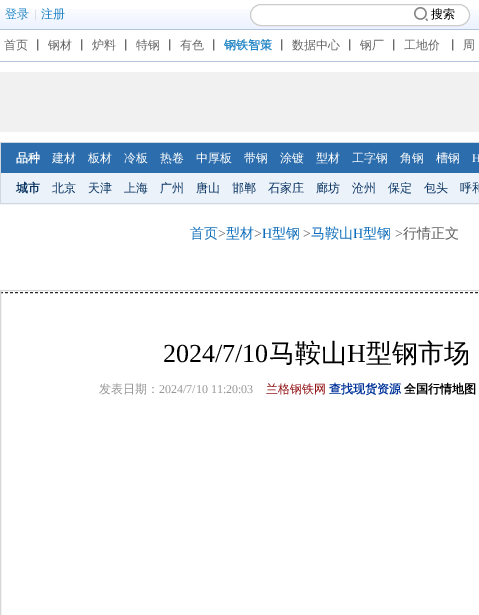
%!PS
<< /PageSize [479 615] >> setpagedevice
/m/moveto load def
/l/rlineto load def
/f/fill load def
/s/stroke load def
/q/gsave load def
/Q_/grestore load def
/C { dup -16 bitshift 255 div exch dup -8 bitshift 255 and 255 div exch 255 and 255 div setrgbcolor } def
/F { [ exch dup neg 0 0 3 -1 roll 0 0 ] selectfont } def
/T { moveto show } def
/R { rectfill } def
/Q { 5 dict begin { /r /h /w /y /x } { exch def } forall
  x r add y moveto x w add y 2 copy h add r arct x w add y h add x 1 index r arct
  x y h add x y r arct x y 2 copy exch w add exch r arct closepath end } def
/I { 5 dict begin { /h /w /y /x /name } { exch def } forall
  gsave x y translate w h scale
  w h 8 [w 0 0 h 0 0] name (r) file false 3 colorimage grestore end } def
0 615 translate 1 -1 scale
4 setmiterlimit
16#FFFFFF C
0 0 479 615 R
(1.rgb) 0 9 479 21 I
/WenQuanYiZenHei-Medium 12 F
16#2587C6 C
(登录) 5 18 T
/LiberationSerif-Regular 12 F
16#CACACA C
(|) 34 18 T
/WenQuanYiZenHei-Medium 12 F
16#2587C6 C
(注册) 41 18 T
16#FFFFFF C
250.5 4.5 219 21 10.5 Q q f Q_
16#CCCCCC C
s
(2.rgb) 414 7 14 14 I
16#000000 C
(搜索) 431 18 T
16#B5C5DE C
0 61 479 1 R
16#656565 C
(首页) 4 49 T
16#333333 C
(丨) 32 49 T
16#656565 C
(钢材) 48 49 T
16#333333 C
(丨) 76 49 T
16#656565 C
(炉料) 92 49 T
16#333333 C
(丨) 120 49 T
16#656565 C
(特钢) 136 49 T
16#333333 C
(丨) 164 49 T
16#656565 C
(有色) 180 49 T
16#333333 C
(丨) 208 49 T
/WenQuanYiZenHei-Bold 12 F
16#2587C6 C
(钢铁智策) 224 49 T
/WenQuanYiZenHei-Medium 12 F
16#333333 C
(丨) 276 49 T
16#656565 C
(数据中心) 292 49 T
16#333333 C
(丨) 344 49 T
16#656565 C
(钢厂) 360 49 T
16#333333 C
(丨) 388 49 T
16#656565 C
(工地价) 404 49 T
16#333333 C
(丨) 447 49 T
16#656565 C
(周) 463 49 T
16#F1F1F1 C
0 72 479 60 R
16#CFD7E1 C
.5 142.5 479 61 rectstroke
16#2C6DAD C
1 143 478 30 R
/WenQuanYiZenHei-Bold 12 F
16#FFFFFF C
(品种) 16 162 T
/WenQuanYiZenHei-Medium 12 F
(建材) 52 162 T
(板材) 88 162 T
(冷板) 124 162 T
(热卷) 160 162 T
(中厚板) 196 162 T
(带钢) 244 162 T
(涂镀) 280 162 T
(型材) 316 162 T
(工字钢) 352 162 T
(角钢) 400 162 T
(槽钢) 436 162 T
/LiberationSerif-Regular 12 F
(H) 472 162 T
16#ECF2F9 C
1 173 478 30 R
/WenQuanYiZenHei-Bold 12 F
16#0A3563 C
(城市) 16 192 T
/WenQuanYiZenHei-Medium 12 F
(北京) 52 192 T
(天津) 88 192 T
(上海) 124 192 T
(广州) 160 192 T
(唐山) 196 192 T
(邯郸) 232 192 T
(石家庄) 268 192 T
(廊坊) 316 192 T
(沧州) 352 192 T
(保定) 388 192 T
(包头) 424 192 T
(呼和) 460 192 T
/WenQuanYiZenHei-Medium 14 F
16#0D6DBA C
(首页) 190 238 T
/LiberationSerif-Regular 14 F
16#5E5E5E C
(>) 218 238 T
/WenQuanYiZenHei-Medium 14 F
16#0D6DBA C
(型材) 226 238 T
/LiberationSerif-Regular 14 F
16#5E5E5E C
(>) 254 238 T
16#0D6DBA C
(H) 262 238 T
/WenQuanYiZenHei-Medium 14 F
(型钢) 272 238 T
/LiberationSerif-Regular 14 F
16#5E5E5E C
(>) 303 238 T
/WenQuanYiZenHei-Medium 14 F
16#0D6DBA C
(马鞍山) 311 238 T
/LiberationSerif-Regular 14 F
(H) 353 238 T
/WenQuanYiZenHei-Medium 14 F
(型钢) 363 238 T
/LiberationSerif-Regular 14 F
16#5E5E5E C
(>) 395 238 T
/WenQuanYiZenHei-Medium 14 F
(行情正文) 403 238 T
16#2B2B2B C
[3 2] 0 setdash
0 292.5 m 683 0 l s
16#D6D6D6 C
[] 0 setdash
.5 290.5 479 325 rectstroke
/LiberationSerif-Regular 26 F
16#000000 C
(2024/7/10) 163 362 T
/WenQuanYiZenHei-Medium 26 F
(马鞍山) 269 362 T
/LiberationSerif-Regular 26 F
(H) 347 362 T
/WenQuanYiZenHei-Medium 26 F
(型钢市场) 366 362 T
/WenQuanYiZenHei-Medium 12 F
16#969696 C
(发表日期：) 99 393 T
/LiberationSerif-Regular 12 F
(2024/7/10 11:20:03) 159 393 T
/WenQuanYiZenHei-Medium 12 F
16#941518 C
(兰格钢铁网) 266 393 T
/WenQuanYiZenHei-Bold 12 F
16#003399 C
(查找现货资源) 329 393 T
16#000000 C
(全国行情地图) 404 393 T
showpage
